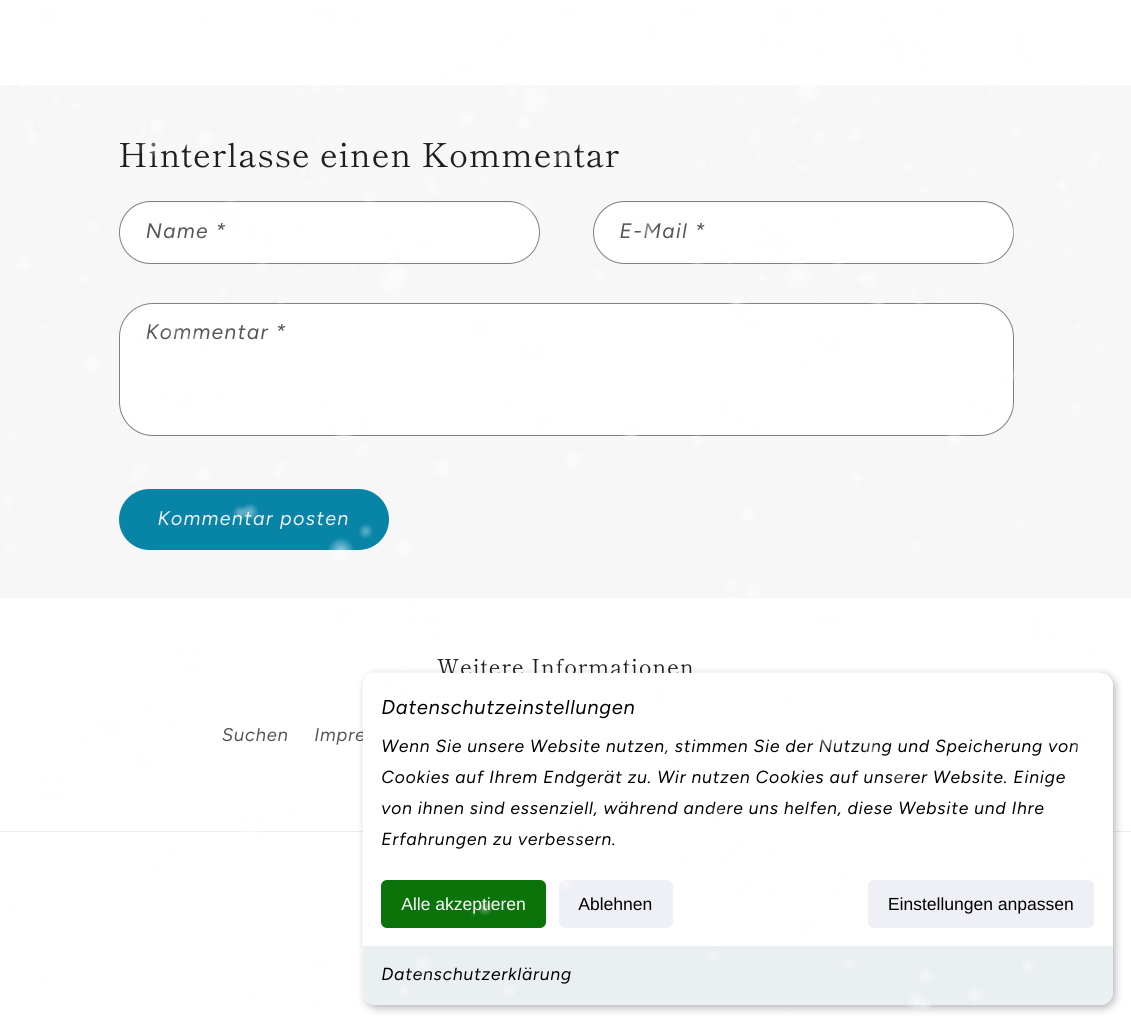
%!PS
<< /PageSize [1131 1023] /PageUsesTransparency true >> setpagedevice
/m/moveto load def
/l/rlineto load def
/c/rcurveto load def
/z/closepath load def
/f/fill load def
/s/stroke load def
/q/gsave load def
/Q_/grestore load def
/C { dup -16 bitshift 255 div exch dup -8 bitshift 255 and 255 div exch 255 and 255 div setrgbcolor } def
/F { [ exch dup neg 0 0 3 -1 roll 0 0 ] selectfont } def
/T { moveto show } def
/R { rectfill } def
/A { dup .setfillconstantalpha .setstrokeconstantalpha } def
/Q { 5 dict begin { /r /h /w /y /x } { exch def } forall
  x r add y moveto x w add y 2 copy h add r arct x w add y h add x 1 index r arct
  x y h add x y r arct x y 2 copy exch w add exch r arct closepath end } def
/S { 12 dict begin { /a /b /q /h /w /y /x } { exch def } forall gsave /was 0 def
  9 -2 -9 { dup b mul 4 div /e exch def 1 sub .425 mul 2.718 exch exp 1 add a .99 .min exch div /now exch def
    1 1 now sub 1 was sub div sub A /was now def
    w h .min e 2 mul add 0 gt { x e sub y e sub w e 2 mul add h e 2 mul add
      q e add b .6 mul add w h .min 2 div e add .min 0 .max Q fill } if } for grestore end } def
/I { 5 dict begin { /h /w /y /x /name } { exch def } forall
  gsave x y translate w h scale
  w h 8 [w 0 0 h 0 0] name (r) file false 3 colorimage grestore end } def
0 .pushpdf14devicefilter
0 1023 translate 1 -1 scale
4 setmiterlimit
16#FFFFFF C
0 0 1131 1023 R
16#F7F7F7 C
0 85 1131 513 R
/ShipporiMincho-Regular 33 F
16#1E1E1E C
118 167 m .8 0 (Hinterlasse einen Kommentar) ashow
16#FFFFFF C
120 203 419 60 30 Q f
0.55 A
16#1E1E1E C
119.5 201.5 420 62 31 Q s
/Figtree-Italic 21 F
1 A
16#565656 C
146 238 m 1.25 0 (Name *) ashow
16#FFFFFF C
594 203 419 60 30 Q f
0.55 A
16#1E1E1E C
593.5 201.5 420 62 31 Q s
1 A
16#565656 C
619 238 m 1.25 0 (E-Mail *) ashow
16#FFFFFF C
120 304 893 131 33 Q f
0.55 A
16#1E1E1E C
119.5 303.5 894 132 33.5 Q s
1 A
16#565656 C
146 339 m 1.25 0 (Kommentar *) ashow
16#0884A7 C
119 489 270 61 30.5 Q f
/Figtree-Italic 19.75 F
16#EFF0F5 C
158 525 m 1.25 0 (Kommentar posten) ashow
/ShipporiMincho-Regular 22 F
16#1E1E1E C
437 675 m .8 0 (Weitere Informationen) ashow
/Figtree-Italic 18.5 F
16#565656 C
222 741 m .8 0 (Suchen) ashow
314 741 m .8 0 (Impre) ashow
16#EDEDED C
0 831 1131 1 R
16#000000 C
365 675 750 333 13 4 .15 S
365 675 750 333 13 4 .15 S
16#FFFFFF C
363 673 750 332 13 Q f
/Figtree-Italic 20 F
16#000000 C
381 714 m .8 0 (Datenschutzeinstellungen) ashow
/Figtree-Italic 17.5 F
381 752 m .8 0 (Wenn Sie unsere Website nutzen, stimmen Sie der Nutzung und Speicherung von) ashow
381 783 m .8 0 (Cookies auf Ihrem Endgerät zu. Wir nutzen Cookies auf unserer Website. Einige) ashow
381 814 m .8 0 (von ihnen sind essenziell, während andere uns helfen, diese Website und Ihre) ashow
381 845 m .8 0 (Erfahrungen zu verbessern.) ashow
16#0A740A C
381 880 165 48 6 Q f
/LiberationSans-Regular 17.5 F
16#FFFFFF C
(Alle akzeptieren) 401 910 T
16#EFF0F5 C
559 880 114 48 6 Q f
16#000000 C
(Ablehnen) 578 910 T
16#EFF0F5 C
868 880 226 48 6 Q f
16#000000 C
(Einstellungen anpassen) 888 910 T
16#EAEFF2 C
363 946 m 750 0 l 0 46 l 0 7 -6 13 -13 13 c -724 0 l -7 0 -13 -6 -13 -13 c z f
16#EEEEEE C
363 946 750 1 R
q
363 673 750 332 13 Q clip newpath
363 1004 750 1 R
Q_
/Figtree-Italic 17.5 F
16#000000 C
381 980 m .8 0 (Datenschutzerklärung) ashow
(1.rgb) 5 4 1096 1006 I
.poppdf14devicefilter showpage
